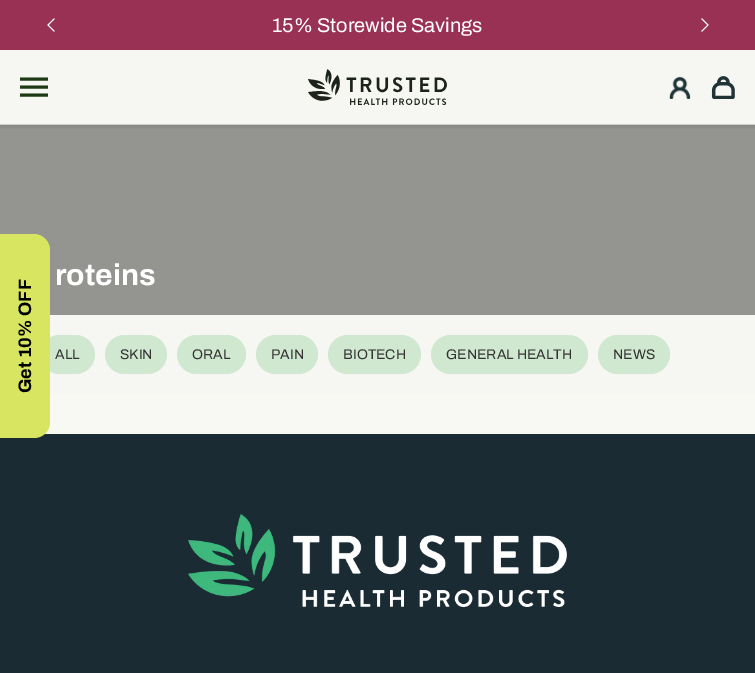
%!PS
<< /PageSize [755 673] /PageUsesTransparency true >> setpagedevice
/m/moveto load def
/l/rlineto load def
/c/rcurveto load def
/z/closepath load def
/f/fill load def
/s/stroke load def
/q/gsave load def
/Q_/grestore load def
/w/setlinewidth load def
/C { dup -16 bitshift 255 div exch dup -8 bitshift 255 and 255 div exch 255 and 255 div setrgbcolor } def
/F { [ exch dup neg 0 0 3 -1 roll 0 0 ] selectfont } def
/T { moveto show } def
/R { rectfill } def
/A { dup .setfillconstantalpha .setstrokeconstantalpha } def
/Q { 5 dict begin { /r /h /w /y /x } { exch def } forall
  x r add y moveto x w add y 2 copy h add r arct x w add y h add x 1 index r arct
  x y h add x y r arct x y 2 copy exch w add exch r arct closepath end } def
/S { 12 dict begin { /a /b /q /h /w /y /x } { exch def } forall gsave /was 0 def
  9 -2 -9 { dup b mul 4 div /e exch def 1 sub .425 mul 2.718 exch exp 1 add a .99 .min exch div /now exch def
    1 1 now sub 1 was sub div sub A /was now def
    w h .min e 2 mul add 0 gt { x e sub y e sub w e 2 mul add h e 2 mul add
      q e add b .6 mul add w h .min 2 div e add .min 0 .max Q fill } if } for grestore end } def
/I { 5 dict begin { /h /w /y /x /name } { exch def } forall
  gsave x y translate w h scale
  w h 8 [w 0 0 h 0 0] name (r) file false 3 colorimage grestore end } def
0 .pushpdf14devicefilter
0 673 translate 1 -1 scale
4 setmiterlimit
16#F6F7F2 C
0 0 755 673 R
16#993155 C
0 0 755 50 R
16#FFFFFF C
.8 w
2 setlinecap
54 19 m -6 6 l 6 6 l s
/Archivo-Regular 20 F
(15% Storewide Savings) 272 32 T
702 31 m 6 -6 l -6 -6 l s
16#949591 C
0 125 755 190 R
q
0 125 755 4 rectclip
16#000000 C
0 52 755 75 0 2.5 .1 S
Q_
16#CCCCCC C
0 124 755 1 R
q
20 73 28 28 rectclip
16#1C3A13 C
2.9 w
21 95 m 26 0 l 21 87 m 26 0 l 21 79 m 26 0 l s
Q_
(1.rgb) 308 69 139 36 I
(2.rgb) 669 76 22 23 I
(3.rgb) 711 76 24 23 I
16#D0E8D0 C
40 335 55 39 19.5 Q f
16#F9F9F3 C
44 394 711 40 R
16#1A2B33 C
0 434 755 239 R
16#D8E561 C
0 438 m 0 -204 l 34 0 l 9 0 16 8 16 16 c 0 172 l 0 9 -7 16 -16 16 c z f
/Archivo-Bold 18 F
16#000000 C
q 31 393 translate -90 rotate 0 0 m (Get 10% OFF) show Q_
/Archivo-Bold 30 F
16#FFFFFF C
(roteins) 55 285 T
/Archivo-Regular 14 F
16#333333 C
(ALL) 55 359 T
16#D0E8D0 C
105 335 62 39 19.5 Q f
16#333333 C
(SKIN) 120 359 T
16#D0E8D0 C
177 335 69 39 19.5 Q f
16#333333 C
(ORAL) 192 359 T
16#D0E8D0 C
256 335 62 39 19.5 Q f
16#333333 C
(PAIN) 271 359 T
16#D0E8D0 C
328 335 93 39 19.5 Q f
16#333333 C
(BIOTECH) 343 359 T
16#D0E8D0 C
431 335 157 39 19.5 Q f
16#333333 C
(GENERAL HEALTH) 446 359 T
16#D0E8D0 C
598 335 72 39 19.5 Q f
16#333333 C
(NEWS) 613 359 T
(4.rgb) 188 514 379 93 I
.poppdf14devicefilter showpage
